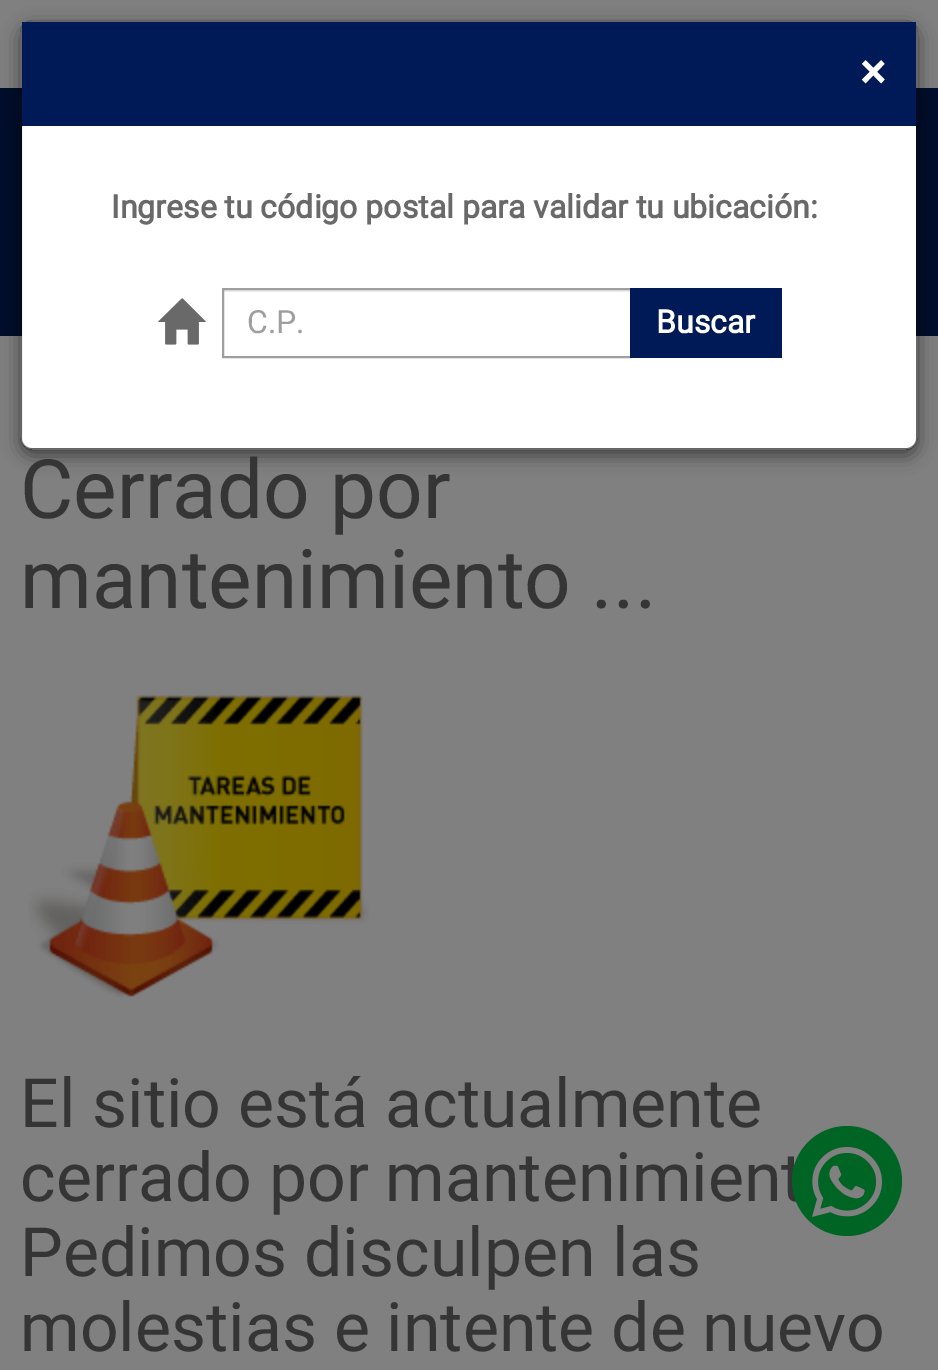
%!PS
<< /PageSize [938 1370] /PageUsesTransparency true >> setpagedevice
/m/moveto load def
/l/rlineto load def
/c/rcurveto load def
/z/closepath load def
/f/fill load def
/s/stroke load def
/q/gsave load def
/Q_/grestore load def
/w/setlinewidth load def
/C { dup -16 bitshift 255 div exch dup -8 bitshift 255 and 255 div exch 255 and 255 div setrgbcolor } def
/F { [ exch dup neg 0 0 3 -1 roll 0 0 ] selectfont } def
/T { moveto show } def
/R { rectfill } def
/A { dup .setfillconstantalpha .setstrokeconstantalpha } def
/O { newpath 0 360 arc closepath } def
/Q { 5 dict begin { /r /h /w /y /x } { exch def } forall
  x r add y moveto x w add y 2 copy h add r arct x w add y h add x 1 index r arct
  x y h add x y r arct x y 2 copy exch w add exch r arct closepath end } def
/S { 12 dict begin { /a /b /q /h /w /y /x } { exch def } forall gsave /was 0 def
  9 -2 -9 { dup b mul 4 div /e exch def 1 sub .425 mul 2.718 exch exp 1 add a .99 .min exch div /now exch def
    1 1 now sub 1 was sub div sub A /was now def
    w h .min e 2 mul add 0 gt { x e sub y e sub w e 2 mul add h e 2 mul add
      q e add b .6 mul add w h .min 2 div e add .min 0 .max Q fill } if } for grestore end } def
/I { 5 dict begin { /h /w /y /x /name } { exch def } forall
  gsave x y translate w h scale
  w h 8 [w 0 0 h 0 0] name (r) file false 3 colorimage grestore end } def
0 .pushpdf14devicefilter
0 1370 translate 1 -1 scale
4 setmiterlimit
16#808080 C
0 0 938 1370 R
16#000D2C C
0 88 938 248 R
q
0 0 m 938 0 l 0 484 l -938 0 l z 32 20 m 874 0 l 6.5 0 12 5.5 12 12 c 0 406 l 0 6.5 -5.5 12 -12 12 c -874 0 l -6.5 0 -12 -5.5 -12 -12 c 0 -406 l 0 -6.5 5.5 -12 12 -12 c z eoclip newpath
16#000000 C
20 26 898 430 12 9 .5 S
Q_
16#FFFFFF C
22 22 894 426 10 Q f
0.2 A
16#000000 C
2 w
21 21 896 428 11 Q s
1 A
16#001A57 C
22 22 894 104 R
/Roboto-Bold 48 F
16#FFFFFF C
(×) 860 88 T
/Roboto-Bold 32 F
16#696969 C
(Ingrese tu código postal para validar tu ubicación:) 111 218 T
(1.rgb) 158 298 48 47 I
16#ECECEC C
224 290 406 2 R
16#9E9E9E C
223 289 408 68 rectstroke
/Roboto-Regular 32 F
(C.P.) 247 333 T
16#001A57 C
630 288 152 70 R
/Roboto-Bold 32 F
16#FFFFFF C
(Buscar) 656 333 T
/Roboto-Regular 82 F
16#353535 C
(Cerrado por) 20 518 T
(mantenimiento ...) 20 608 T
(2.rgb) 28 695 341 303 I
/Roboto-Regular 68 F
(El sitio está actualmente) 20 1127 T
(cerrado por mantenimient) 20 1201 T
(Pedimos disculpen las) 20 1276 T
(molestias e intente de nuevo) 20 1351 T
16#006425 C
847 1181 55 O f
(3.rgb) 812 1147 70 70 I
.poppdf14devicefilter showpage
